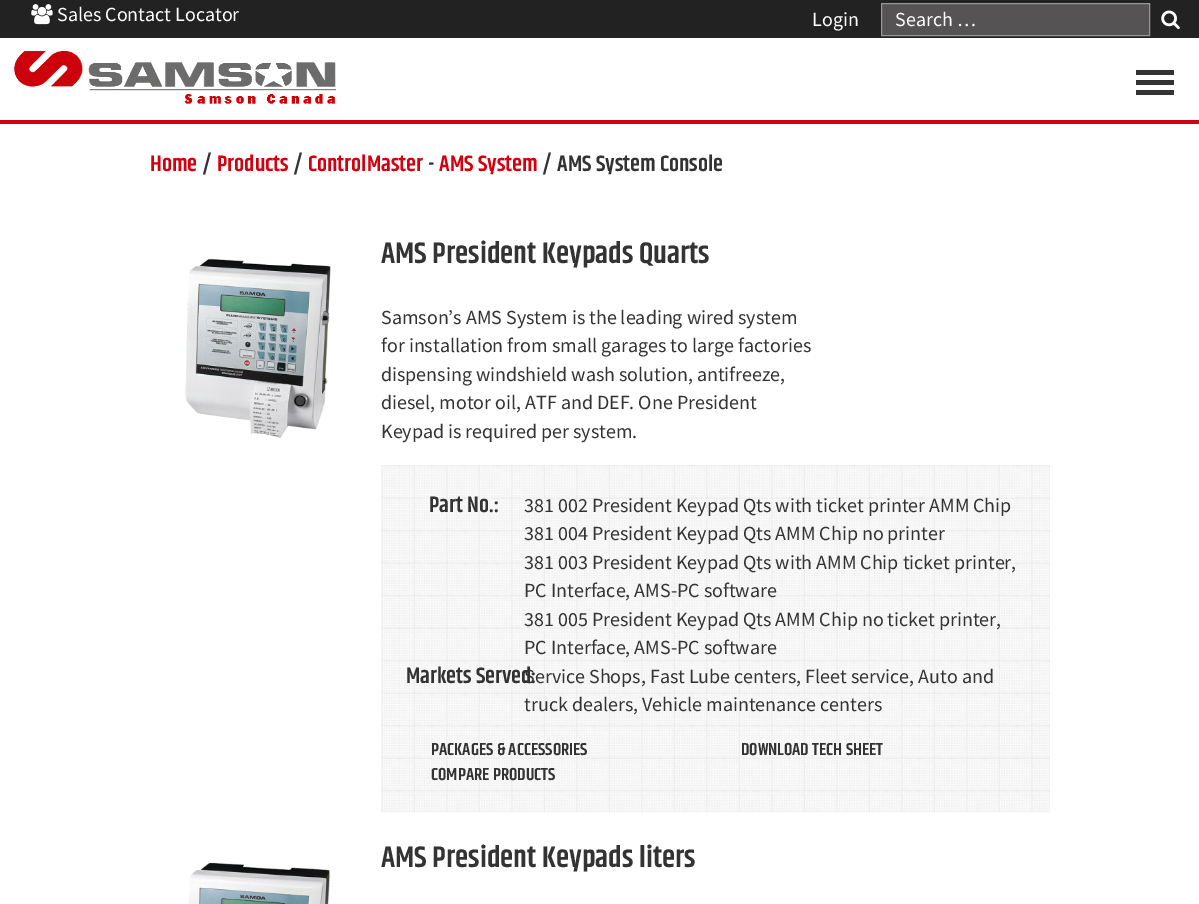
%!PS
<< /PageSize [1199 904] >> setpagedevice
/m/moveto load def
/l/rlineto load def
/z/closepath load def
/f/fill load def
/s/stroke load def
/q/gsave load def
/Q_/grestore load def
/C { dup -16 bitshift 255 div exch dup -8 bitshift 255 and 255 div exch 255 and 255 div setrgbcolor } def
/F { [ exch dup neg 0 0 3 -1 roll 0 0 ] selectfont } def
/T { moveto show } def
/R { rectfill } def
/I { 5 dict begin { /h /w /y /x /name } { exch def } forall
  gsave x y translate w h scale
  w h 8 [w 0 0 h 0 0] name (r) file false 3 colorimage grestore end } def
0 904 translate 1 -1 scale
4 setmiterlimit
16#FFFFFF C
0 0 1199 904 R
16#D3000D C
0 120 1199 4 R
16#222222 C
0 0 1199 38 R
(1.rgb) 31 4 22 21 I
/SourceSansPro-Regular 20 F
16#FFFFFF C
(Sales Contact Locator) 57 21 T
(Login) 812 26 T
16#555353 C
881.5 3.5 m 268 0 l 0 32 l -268 0 l z q f Q_
16#979797 C
s
16#FFFFFF C
(Search …) 895 26 T
(2.rgb) 1161 10 19 20 I
(3.rgb) 14 51 322 53 I
16#333333 C
1136 70 38 5 R
1136 80 38 5 R
1136 90 38 5 R
/Khand-SemiBold 22.5 F
16#D3000D C
(Home) 150 171 T
16#333333 C
(/) 202 171 T
16#D3000D C
(Products) 217 171 T
16#333333 C
(/) 293 171 T
16#D3000D C
(ControlMaster) 308 171 T
16#333333 C
(-) 428 171 T
16#D3000D C
(AMS System) 439 171 T
16#333333 C
(/) 542 171 T
(AMS System Console) 557 171 T
(4.rgb) 185 258 146 180 I
/Khand-SemiBold 30 F
(AMS President Keypads Quarts) 381 263 T
/SourceSansPro-Regular 20 F
(Samson’s AMS System is the leading wired system) 381 324 T
(for installation from small garages to large factories) 381 352 T
(dispensing windshield wash solution, antifreeze,) 381 381 T
(diesel, motor oil, ATF and DEF. One President) 381 409 T
(Keypad is required per system.) 381 438 T
(5.rgb) 381 465 669 348 I
/Khand-SemiBold 22.5 F
(Part No.:) 429 512 T
/SourceSansPro-Regular 20 F
(381 002 President Keypad Qts with ticket printer AMM Chip) 524 512 T
(381 004 President Keypad Qts AMM Chip no printer) 524 540 T
(381 003 President Keypad Qts with AMM Chip ticket printer,) 524 569 T
(PC Interface, AMS-PC software) 524 597 T
(381 005 President Keypad Qts AMM Chip no ticket printer,) 524 626 T
(PC Interface, AMS-PC software) 524 654 T
/Khand-SemiBold 22.5 F
(Markets Served:) 406 683 T
/SourceSansPro-Regular 20 F
(Service Shops, Fast Lube centers, Fleet service, Auto and) 524 683 T
(truck dealers, Vehicle maintenance centers) 524 711 T
/Khand-SemiBold 17.5 F
(PACKAGES & ACCESSORIES) 431 755 T
(DOWNLOAD TECH SHEET) 741 755 T
(COMPARE PRODUCTS) 431 780 T
/Khand-SemiBold 30 F
(AMS President Keypads liters) 381 867 T
(6.rgb) 188 862 143 42 I
showpage
